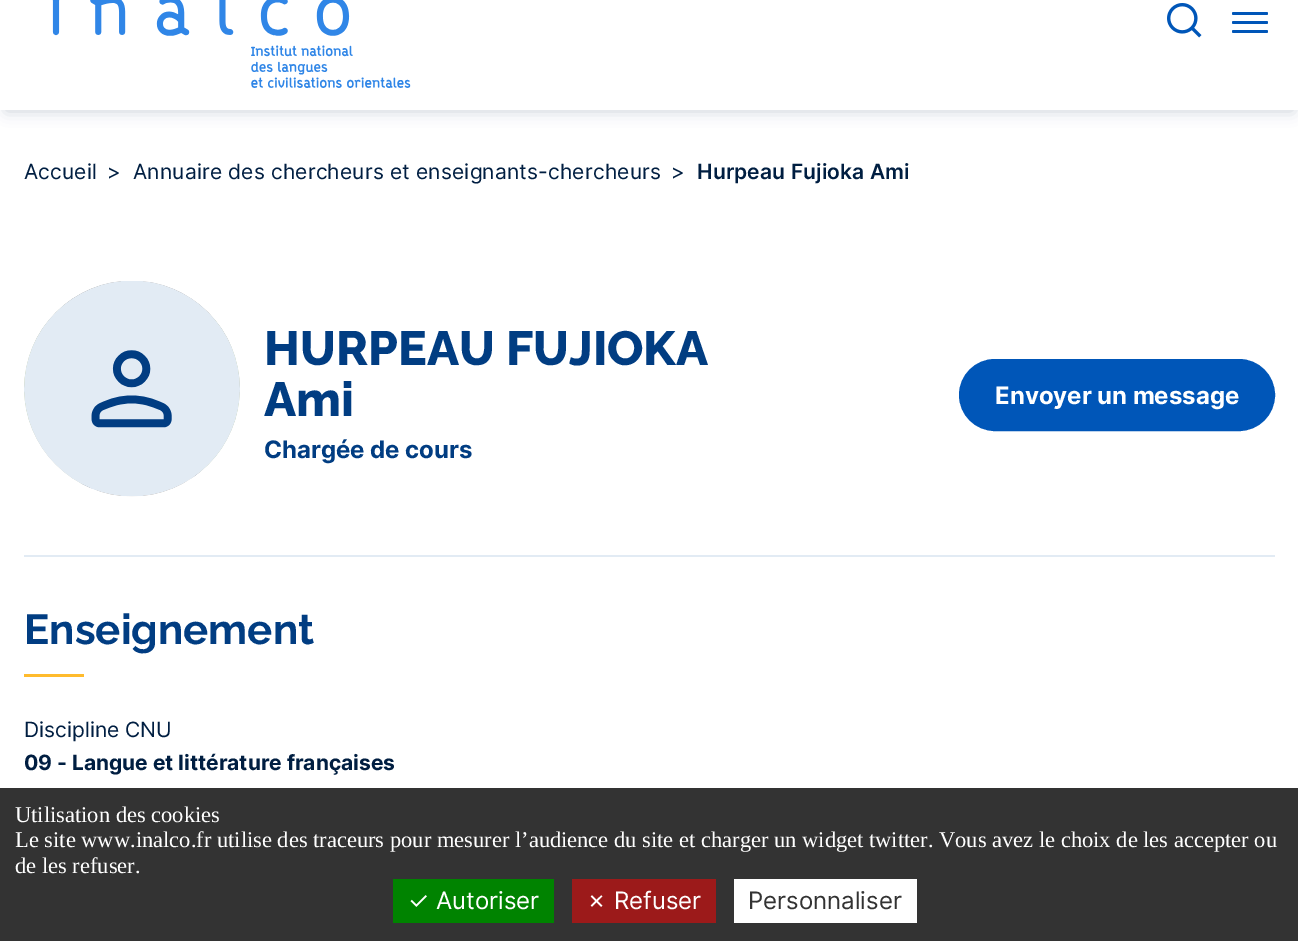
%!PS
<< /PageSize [1298 941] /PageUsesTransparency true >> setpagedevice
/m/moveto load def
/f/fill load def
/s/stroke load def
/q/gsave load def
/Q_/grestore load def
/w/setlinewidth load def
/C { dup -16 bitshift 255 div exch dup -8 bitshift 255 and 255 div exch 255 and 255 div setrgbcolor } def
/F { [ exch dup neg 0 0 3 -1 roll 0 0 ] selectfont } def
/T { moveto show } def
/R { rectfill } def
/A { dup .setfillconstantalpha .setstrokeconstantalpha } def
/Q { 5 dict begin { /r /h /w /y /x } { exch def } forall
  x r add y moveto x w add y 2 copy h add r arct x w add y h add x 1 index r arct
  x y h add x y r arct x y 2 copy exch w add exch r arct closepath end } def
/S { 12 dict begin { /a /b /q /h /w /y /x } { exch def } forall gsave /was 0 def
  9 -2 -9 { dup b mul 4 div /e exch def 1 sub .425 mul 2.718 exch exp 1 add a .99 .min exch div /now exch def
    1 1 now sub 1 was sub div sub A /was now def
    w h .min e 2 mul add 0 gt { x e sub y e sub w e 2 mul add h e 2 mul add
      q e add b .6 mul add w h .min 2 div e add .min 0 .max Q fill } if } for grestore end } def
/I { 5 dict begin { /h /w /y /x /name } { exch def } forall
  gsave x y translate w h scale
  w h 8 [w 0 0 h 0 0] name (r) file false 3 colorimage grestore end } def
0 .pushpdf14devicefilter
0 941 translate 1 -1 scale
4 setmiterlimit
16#FFFFFF C
0 0 1298 941 R
16#001E41 C
6 -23 1287 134 0 7.5 .2 S
16#FFFFFF C
0 0 1298 110 R
(1.rgb) 52 0 359 88 I
(2.rgb) 1167 3 35 35 I
16#0056B8 C
1232 12 36 3 1.5 Q f
1232 21 36 3 1.5 Q f
1232 30 36 3 1.5 Q f
/Inter-Regular 21 F
16#001E41 C
24 179 m .15 0 (Accueil) ashow
(>) 107 179 T
133 179 m .15 0 (Annuaire des chercheurs et enseignants-chercheurs) ashow
(>) 671 179 T
/Inter-SemiBold 21 F
697 179 m .15 0 (Hurpeau Fujioka Ami) ashow
(3.rgb) 24 281 216 216 I
/Raleway-ExtraBold 48 F
16#013D82 C
(HURPEAU FUJIOKA) 264 365 T
(Ami) 264 416 T
/Inter-Bold 24 F
(Chargée de cours) 264 458 T
16#0056B8 C
960.5 360.5 313 69 34.5 Q q f Q_
3 w
s
16#FFFFFF C
(Envoyer un message) 995 404 T
16#E2EBF4 C
24 555 1251 2 R
/Raleway-Bold 42 F
16#013D82 C
(Enseignement) 24 644 T
16#FFBB2D C
24 674 60 3 R
/Inter-Regular 21 F
16#001E41 C
(Discipline CNU) 24 737 T
/Inter-Bold 21 F
(09 - Langue et littérature françaises) 24 770 T
16#333333 C
0 788 1298 153 R
/LiberationSerif-Regular 22.5 F
16#FFFFFF C
(Utilisation des cookies) 15 822 T
(Le site www.inalco.fr utilise des traceurs pour mesurer l’audience du site et charger un widget twitter. Vous avez le choix de les accepter ou) 15 847 T
(de les refuser.) 15 873 T
16#008300 C
393 879 161 44 R
/Inter-Regular 24 F
16#FFFFFF C
(✓ Autoriser) 408 909 T
16#9C1A1A C
572 879 144 44 R
16#FFFFFF C
(✗ Refuser) 586 909 T
734 879 183 44 R
16#333333 C
(Personnaliser) 748 909 T
.poppdf14devicefilter showpage
